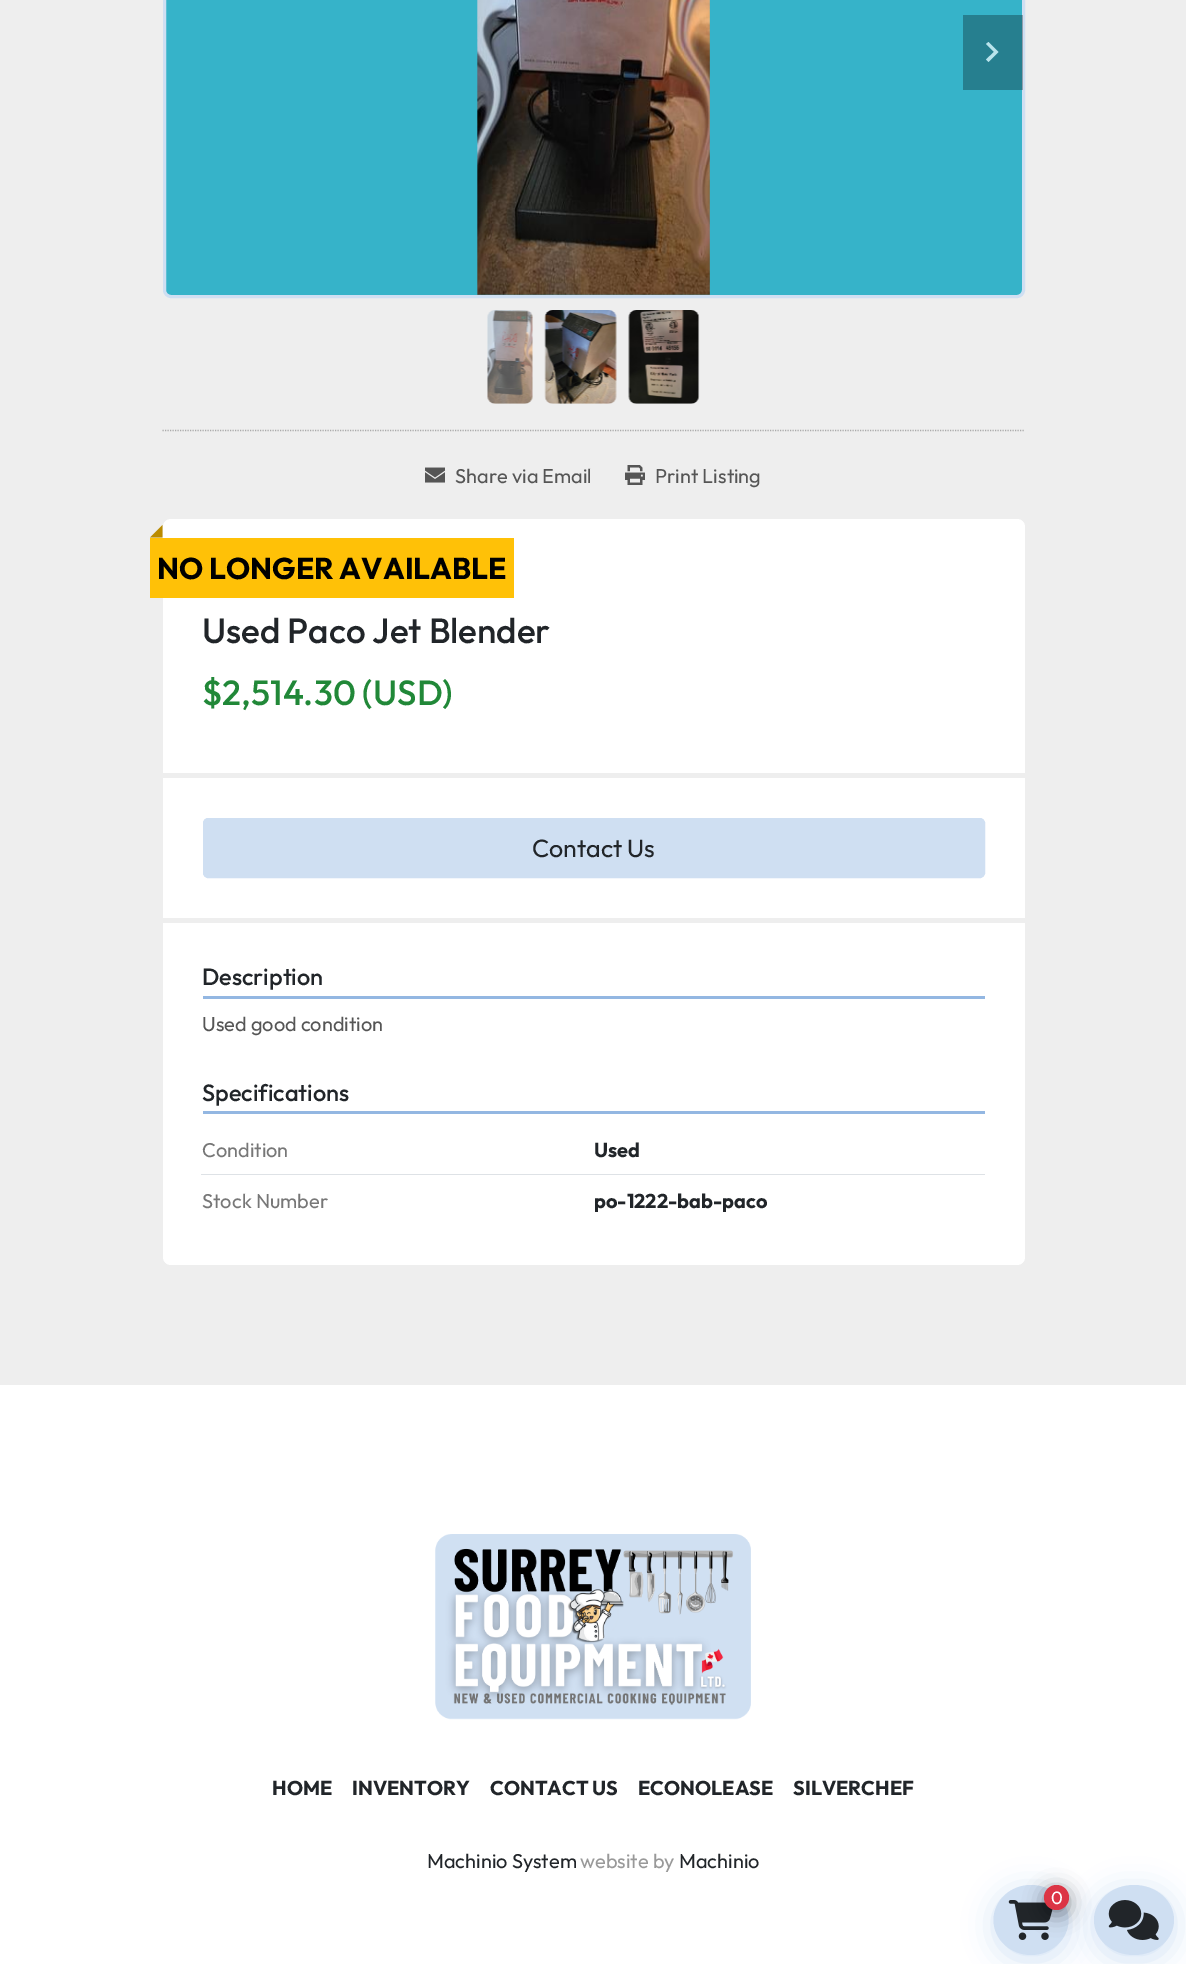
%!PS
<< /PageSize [1186 1964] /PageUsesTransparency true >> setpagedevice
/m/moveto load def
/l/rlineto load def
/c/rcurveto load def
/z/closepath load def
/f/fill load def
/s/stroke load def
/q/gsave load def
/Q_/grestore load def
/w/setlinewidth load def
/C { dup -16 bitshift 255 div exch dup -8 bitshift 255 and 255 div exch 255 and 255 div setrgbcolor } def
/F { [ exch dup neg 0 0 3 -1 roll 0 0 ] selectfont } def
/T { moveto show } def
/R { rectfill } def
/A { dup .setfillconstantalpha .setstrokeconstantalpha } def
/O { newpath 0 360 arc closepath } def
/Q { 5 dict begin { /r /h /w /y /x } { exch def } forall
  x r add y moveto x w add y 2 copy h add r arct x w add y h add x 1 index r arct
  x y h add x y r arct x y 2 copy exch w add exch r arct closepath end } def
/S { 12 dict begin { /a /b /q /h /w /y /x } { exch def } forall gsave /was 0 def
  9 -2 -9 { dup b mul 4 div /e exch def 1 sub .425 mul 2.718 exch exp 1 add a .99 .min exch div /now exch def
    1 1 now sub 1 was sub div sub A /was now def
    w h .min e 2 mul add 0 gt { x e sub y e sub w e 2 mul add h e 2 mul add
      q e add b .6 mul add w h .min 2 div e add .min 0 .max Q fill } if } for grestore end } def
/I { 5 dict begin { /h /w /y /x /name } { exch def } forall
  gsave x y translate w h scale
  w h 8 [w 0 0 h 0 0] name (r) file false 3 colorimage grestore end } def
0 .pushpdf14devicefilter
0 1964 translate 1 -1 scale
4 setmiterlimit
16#EEEEEE C
0 0 1186 1964 R
16#36B3C9 C
164.5 -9.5 859 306 6.5 Q q f Q_
16#CFDFF2 C
3 w
s
(1.rgb) 477 0 233 295 I
0.29 A
16#000000 C
963 15 60 75 R
1 A
16#B9E4EC C
998.5 52 m -10 10 l -2.5 -2.5 l 8 -7.5 l -8 -8 l 2.5 -2 l z f
(2.rgb) 487 310 46 94 I
(3.rgb) 544 310 73 94 I
(4.rgb) 628 310 72 94 I
16#AAAAAA C
1.2 w
[1.25 1.25] 0 setdash
162.5 430.5 m 862.5 0 l s
(5.rgb) 425 467 20 16 I
/Outfit-Thin 20 F
16#555555 C
(Share via Email) 455 483 T
(6.rgb) 625 465 20 20 I
(Print Listing) 655 483 T
16#FFFFFF C
163 519 862 746 8 Q f
16#FFC107 C
150 538 364 60 R
16#BA8B00 C
162.5 537.5 m -12.5 0 l 12.5 -12.5 l z f
/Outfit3-Thin 30 F
16#000000 C
(NO LONGER AVAILABLE) 157 579 T
/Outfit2-Thin 35 F
16#212529 C
(Used Paco Jet Blender) 202 643 T
16#218838 C
($2,514.30 \(USD\)) 202 705 T
16#EEEEEE C
163 773 862 5 R
163 918 862 5 R
16#CFDFF2 C
203.5 818.5 781 59 4.5 Q q f Q_
1 w
[] 0 setdash
s
/Outfit-Thin 25 F
16#212529 C
(Contact Us) 532 857 T
16#93B7E2 C
203 996 782 3 R
/Outfit2-Thin 23.5 F
16#212529 C
(Description) 202 985 T
/Outfit-Thin 20 F
16#555555 C
(Used good condition) 202 1031 T
16#93B7E2 C
203 1111 782 3 R
/Outfit2-Thin 23.5 F
16#212529 C
(Specifications) 202 1101 T
16#DEE2E6 C
201 1174 784 1 R
/Outfit-Thin 20 F
16#777777 C
(Condition) 202 1157 T
/Outfit3-Thin 20 F
16#212529 C
(Used) 594 1157 T
/Outfit-Thin 20 F
16#777777 C
(Stock Number) 202 1208 T
/Outfit3-Thin 20 F
16#212529 C
(po-1222-bab-paco) 594 1208 T
16#FFFFFF C
0 1385 1186 579 R
(7.rgb) 435 1534 316 186 I
16#212529 C
(HOME) 272 1795 T
(INVENTORY) 352 1795 T
(CONTACT US) 490 1795 T
(ECONOLEASE) 638 1795 T
(SILVERCHEF) 793 1795 T
/Outfit-Thin 20 F
(Machinio System) 427 1868 T
16#999999 C
(website by) 580 1868 T
16#212529 C
(Machinio) 679 1868 T
16#93B7E2 C
994 1890 75 70 35 15 .4 S
16#CFDFF2 C
1031 1885 m 20.5 0 37.5 15.5 37.5 35 c 0 19.5 -17 35 -37.5 35 c -20.5 0 -37.5 -15.5 -37.5 -35 c 0 -19.5 17 -35 37.5 -35 c z f
(9.rgb) 1008 1900 45 40 I
16#93B7E2 C
1094 1890 80 70 35 15 .4 S
16#CFDFF2 C
1134 1885 m 22 0 40 15.5 40 35 c 0 19.5 -18 35 -40 35 c -22 0 -40 -15.5 -40 -35 c 0 -19.5 18 -35 40 -35 c z f
(8.rgb) 1108 1900 51 40 I
16#000000 C
1044 1890 25 25 12.5 10 .4 S
16#DC3545 C
1056.5 1897.5 12.5 O f
/Outfit-Thin 18 F
16#FFFFFF C
(0) 1051 1904 T
.poppdf14devicefilter showpage
